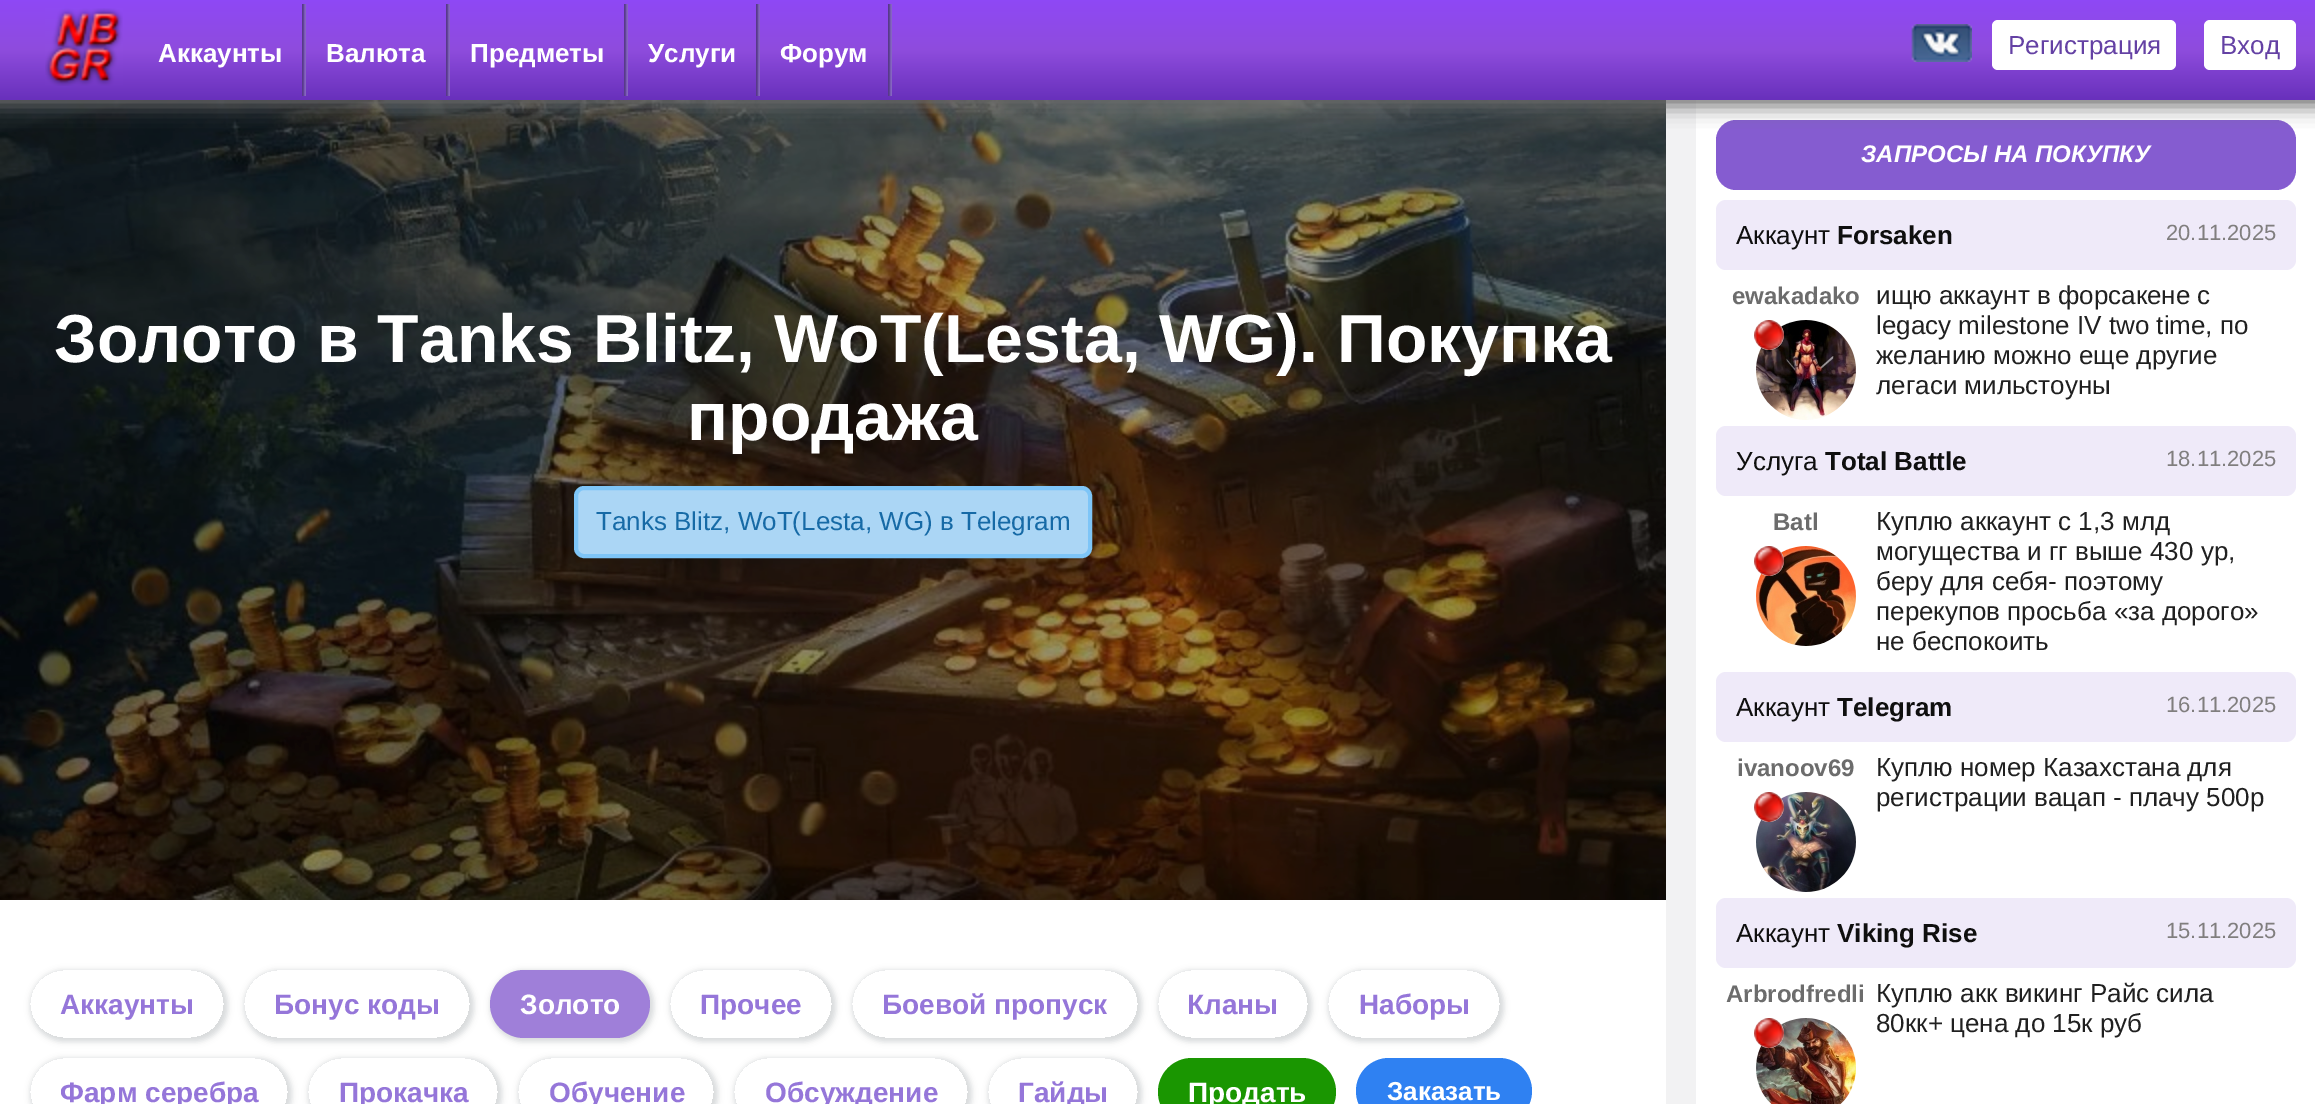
%!PS
<< /PageSize [2315 1104] /PageUsesTransparency true >> setpagedevice
/m/moveto load def
/l/rlineto load def
/c/rcurveto load def
/z/closepath load def
/f/fill load def
/s/stroke load def
/q/gsave load def
/Q_/grestore load def
/w/setlinewidth load def
/C { dup -16 bitshift 255 div exch dup -8 bitshift 255 and 255 div exch 255 and 255 div setrgbcolor } def
/F { [ exch dup neg 0 0 3 -1 roll 0 0 ] selectfont } def
/T { moveto show } def
/R { rectfill } def
/A { dup .setfillconstantalpha .setstrokeconstantalpha } def
/O { newpath 0 360 arc closepath } def
/Q { 5 dict begin { /r /h /w /y /x } { exch def } forall
  x r add y moveto x w add y 2 copy h add r arct x w add y h add x 1 index r arct
  x y h add x y r arct x y 2 copy exch w add exch r arct closepath end } def
/S { 12 dict begin { /a /b /q /h /w /y /x } { exch def } forall gsave /was 0 def
  9 -2 -9 { dup b mul 4 div /e exch def 1 sub .425 mul 2.718 exch exp 1 add a .99 .min exch div /now exch def
    1 1 now sub 1 was sub div sub A /was now def
    w h .min e 2 mul add 0 gt { x e sub y e sub w e 2 mul add h e 2 mul add
      q e add b .6 mul add w h .min 2 div e add .min 0 .max Q fill } if } for grestore end } def
/I { 5 dict begin { /h /w /y /x /name } { exch def } forall
  gsave x y translate w h scale
  w h 8 [w 0 0 h 0 0] name (r) file false 3 colorimage grestore end } def
0 .pushpdf14devicefilter
0 1104 translate 1 -1 scale
4 setmiterlimit
16#FFFFFF C
0 0 2315 1104 R
q 1666 100 m 30 0 l 0 1004 l -30 0 l z clip newpath 60 40 translate 3190 7040 scale
<< /ShadingType 3 /ColorSpace /DeviceRGB /Coords [0 0 0 0 0 1] /Extend [true true] /Function << /FunctionType 2 /Domain [0 1] /C0 [.969 .969 .969] /C1 [.933 .929 .941] /N 1 >> >> shfill Q_
(4.rgb) 0 100 1666 800 I
16#855CD0 C
1716 120 580 70 20 Q f
16#6D6C6C C
-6 -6 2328 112 0 10 1 S
q 0 0 m 2315 0 l 0 100 l -2315 0 l z clip newpath
<< /ShadingType 2 /ColorSpace /DeviceRGB /Coords [1158 100 1158 0] /Extend [true true] /Function << /FunctionType 3 /Domain [0 1] /Functions [<< /FunctionType 2 /Domain [0 1] /C0 [.408 .188 .733] /C1 [.557 .298 .867] /N 1 >> << /FunctionType 2 /Domain [0 1] /C0 [.557 .298 .867] /C1 [.557 .282 .961] /N 1 >>] /Bounds [.5] /Encode [0 1 0 1] >> >> shfill Q_
(1.rgb) 45 8 78 78 I
/LiberationSans-Bold 26 F
16#FFFFFF C
(Аккаунты) 158 62 T
(2.rgb) 302 4 4 92 I
(Валюта) 326 62 T
(2.rgb) 446 4 4 92 I
(Предметы) 470 62 T
(2.rgb) 624 4 4 92 I
(Услуги) 648 62 T
(2.rgb) 756 4 4 92 I
(Форум) 780 62 T
(2.rgb) 888 4 4 92 I
(3.rgb) 1911 24 61 38 I
1992 20 184 50 6 Q f
/LiberationSans-Regular 26 F
16#6441A4 C
(Регистрация) 2008 54 T
16#FFFFFF C
2204 20 92 50 6 Q f
16#6441A4 C
(Вход) 2220 54 T
/LiberationSans-Bold 68 F
16#FFFFFF C
(Золото в Tanks Blitz, WoT\(Lesta, WG\). Покупка) 54 362 T
(продажа) 687 440 T
16#ABD6F5 C
576 488 514 68 8 Q q f Q_
16#7EC5F7 C
4 w
s
/LiberationSans-Regular 26 F
16#166AA6 C
(Tanks Blitz, WoT\(Lesta, WG\) в Telegram) 596 530 T
q
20 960 m 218 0 l 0 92 l -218 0 l z 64 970 m 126 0 l 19 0 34 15 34 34 c 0 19 -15 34 -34 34 c -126 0 l -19 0 -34 -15 -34 -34 c 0 -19 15 -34 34 -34 c z eoclip newpath
16#D8DADB C
30 970 198 72 36 3 1 S
Q_
/LiberationSans-Bold 28 F
16#9576D9 C
(Аккаунты) 60 1014 T
q
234 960 m 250 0 l 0 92 l -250 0 l z 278 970 m 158 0 l 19 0 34 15 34 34 c 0 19 -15 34 -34 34 c -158 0 l -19 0 -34 -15 -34 -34 c 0 -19 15 -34 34 -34 c z eoclip newpath
16#D8DADB C
244 970 230 72 36 3 1 S
Q_
(Бонус коды) 274 1014 T
16#D8DADB C
490 970 164 72 36 3 1 S
16#9F7FD9 C
490 970 160 68 34 Q f
16#FFFFFF C
(Золото) 520 1014 T
q
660 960 m 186 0 l 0 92 l -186 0 l z 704 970 m 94 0 l 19 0 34 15 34 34 c 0 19 -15 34 -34 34 c -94 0 l -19 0 -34 -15 -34 -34 c 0 -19 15 -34 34 -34 c z eoclip newpath
16#D8DADB C
670 970 166 72 36 3 1 S
Q_
16#9576D9 C
(Прочее) 700 1014 T
q
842 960 m 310 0 l 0 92 l -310 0 l z 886 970 m 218 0 l 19 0 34 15 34 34 c 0 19 -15 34 -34 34 c -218 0 l -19 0 -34 -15 -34 -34 c 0 -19 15 -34 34 -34 c z eoclip newpath
16#D8DADB C
852 970 290 72 36 3 1 S
Q_
(Боевой пропуск) 882 1014 T
q
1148 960 m 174 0 l 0 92 l -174 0 l z 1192 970 m 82 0 l 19 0 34 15 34 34 c 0 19 -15 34 -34 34 c -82 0 l -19 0 -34 -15 -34 -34 c 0 -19 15 -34 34 -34 c z eoclip newpath
16#D8DADB C
1158 970 154 72 36 3 1 S
Q_
(Кланы) 1187 1014 T
q
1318 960 m 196 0 l 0 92 l -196 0 l z 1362 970 m 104 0 l 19 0 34 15 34 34 c 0 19 -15 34 -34 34 c -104 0 l -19 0 -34 -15 -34 -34 c 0 -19 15 -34 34 -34 c z eoclip newpath
16#D8DADB C
1328 970 176 72 36 3 1 S
Q_
(Наборы) 1359 1014 T
q
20 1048 m 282 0 l 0 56 l -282 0 l z 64 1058 m 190 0 l 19 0 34 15 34 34 c 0 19 -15 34 -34 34 c -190 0 l -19 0 -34 -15 -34 -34 c 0 -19 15 -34 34 -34 c z eoclip newpath
16#D8DADB C
30 1058 262 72 36 3 1 S
Q_
(Фарм серебра) 60 1102 T
q
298 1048 m 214 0 l 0 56 l -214 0 l z 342 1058 m 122 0 l 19 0 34 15 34 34 c 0 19 -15 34 -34 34 c -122 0 l -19 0 -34 -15 -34 -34 c 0 -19 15 -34 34 -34 c z eoclip newpath
16#D8DADB C
308 1058 194 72 36 3 1 S
Q_
(Прокачка) 339 1102 T
q
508 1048 m 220 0 l 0 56 l -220 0 l z 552 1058 m 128 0 l 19 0 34 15 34 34 c 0 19 -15 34 -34 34 c -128 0 l -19 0 -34 -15 -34 -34 c 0 -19 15 -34 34 -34 c z eoclip newpath
16#D8DADB C
518 1058 200 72 36 3 1 S
Q_
(Обучение) 549 1102 T
q
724 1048 m 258 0 l 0 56 l -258 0 l z 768 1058 m 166 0 l 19 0 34 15 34 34 c 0 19 -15 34 -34 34 c -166 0 l -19 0 -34 -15 -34 -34 c 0 -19 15 -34 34 -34 c z eoclip newpath
16#D8DADB C
734 1058 238 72 36 3 1 S
Q_
(Обсуждение) 765 1102 T
q
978 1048 m 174 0 l 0 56 l -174 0 l z 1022 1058 m 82 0 l 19 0 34 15 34 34 c 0 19 -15 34 -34 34 c -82 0 l -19 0 -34 -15 -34 -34 c 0 -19 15 -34 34 -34 c z eoclip newpath
16#D8DADB C
988 1058 154 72 36 3 1 S
Q_
(Гайды) 1018 1102 T
16#1A9601 C
1158 1058 178 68 34 Q f
16#FFFFFF C
(Продать) 1188 1102 T
16#2F81F2 C
1356 1058 176 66 33 Q f
/LiberationSans-Bold 26 F
16#FFFFFF C
(Заказать) 1387 1100 T
/LiberationSans-BoldItalic 24 F
(ЗАПРОСЫ НА ПОКУПКУ) 1861 162 T
16#EFEAF9 C
1716 200 580 70 10 Q f
/LiberationSans-Regular 26 F
16#0F0F0F C
(Аккаунт) 1736 244 T
/LiberationSans-Bold 26 F
(Forsaken) 1837 244 T
/LiberationSans-Regular 22 F
16#807E7E C
(20.11.2025) 2166 240 T
/LiberationSans-Bold 24 F
16#6C6C6C C
(ewakadako) 1732 304 T
(6.rgb) 1756 320 100 100 I
16#FFFFFF C
1769 335 15 O f
(5.rgb) 1754 320 30 30 I
/LiberationSans-Regular 26 F
16#202020 C
(ищю аккаунт в форсакене с) 1876 304 T
(legacy milestone IV two time, по) 1876 334 T
(желанию можно еще другие) 1876 364 T
(легаси мильстоуны) 1876 394 T
16#EFEAF9 C
1716 426 580 70 10 Q f
16#0F0F0F C
(Услуга) 1736 470 T
/LiberationSans-Bold 26 F
(Total Battle) 1825 470 T
/LiberationSans-Regular 22 F
16#807E7E C
(18.11.2025) 2166 466 T
/LiberationSans-Bold 24 F
16#6C6C6C C
(Batl) 1773 530 T
(8.rgb) 1756 546 100 100 I
16#FFFFFF C
1769 561 15 O f
(7.rgb) 1754 546 30 30 I
/LiberationSans-Regular 26 F
16#202020 C
(Куплю аккаунт с 1,3 млд) 1876 530 T
(могущества и гг выше 430 ур,) 1876 560 T
(беру для себя- поэтому) 1876 590 T
(перекупов просьба «за дорого») 1876 620 T
(не беспокоить) 1876 650 T
16#EFEAF9 C
1716 672 580 70 10 Q f
16#0F0F0F C
(Аккаунт) 1736 716 T
/LiberationSans-Bold 26 F
(Telegram) 1837 716 T
/LiberationSans-Regular 22 F
16#807E7E C
(16.11.2025) 2166 712 T
/LiberationSans-Bold 24 F
16#6C6C6C C
(ivanoov69) 1737 776 T
(10.rgb) 1756 792 100 100 I
16#FFFFFF C
1769 807 15 O f
(9.rgb) 1754 792 30 30 I
/LiberationSans-Regular 26 F
16#202020 C
(Куплю номер Казахстана для) 1876 776 T
(регистрации вацап - плачу 500р) 1876 806 T
16#EFEAF9 C
1716 898 580 70 10 Q f
16#0F0F0F C
(Аккаунт) 1736 942 T
/LiberationSans-Bold 26 F
(Viking Rise) 1837 942 T
/LiberationSans-Regular 22 F
16#807E7E C
(15.11.2025) 2166 938 T
/LiberationSans-Bold 24 F
16#6C6C6C C
(Arbrodfredli) 1726 1002 T
(12.rgb) 1756 1018 100 86 I
16#FFFFFF C
1769 1033 15 O f
(11.rgb) 1754 1018 30 30 I
/LiberationSans-Regular 26 F
16#202020 C
(Куплю акк викинг Райс сила) 1876 1002 T
(80кк+ цена до 15к руб) 1876 1032 T
.poppdf14devicefilter showpage
